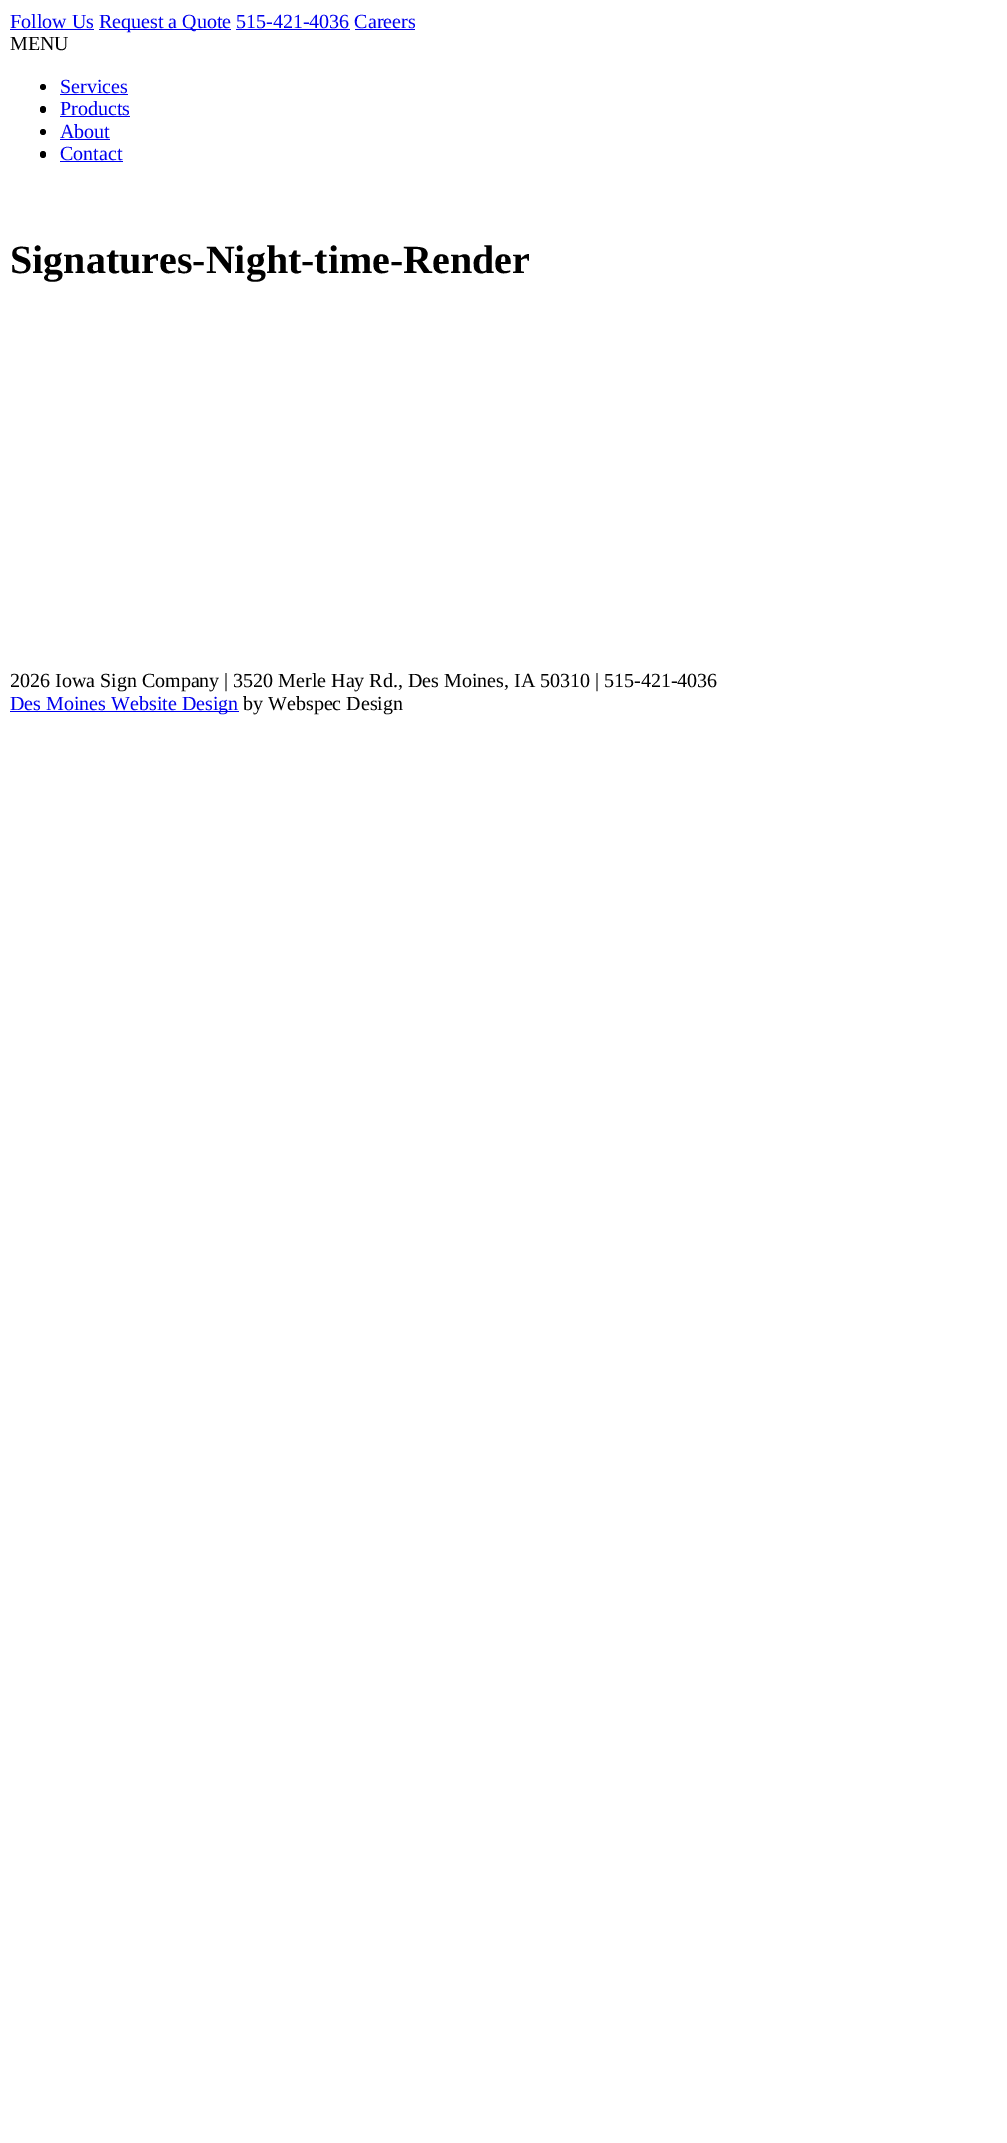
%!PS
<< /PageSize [1007 2143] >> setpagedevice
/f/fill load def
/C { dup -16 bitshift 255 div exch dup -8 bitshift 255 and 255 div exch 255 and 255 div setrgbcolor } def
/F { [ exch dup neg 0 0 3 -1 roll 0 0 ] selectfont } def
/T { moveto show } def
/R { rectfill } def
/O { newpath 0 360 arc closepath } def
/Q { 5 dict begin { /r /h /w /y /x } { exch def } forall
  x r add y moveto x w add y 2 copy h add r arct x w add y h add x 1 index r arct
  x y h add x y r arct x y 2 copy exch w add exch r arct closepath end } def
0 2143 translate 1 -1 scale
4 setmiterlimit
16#FFFFFF C
0 0 1007 2143 R
/LiberationSerif-Regular 20 F
16#0000EE C
(Follow Us) 10 28 T
10 29 84 1 R
99 29 132 1 R
(Request a Quote 515-421-4036 Careers) 99 28 T
236 29 114 1 R
355 29 60 1 R
16#000000 C
(MENU) 10 50 T
43 87 3 O f
16#0000EE C
(Services) 60 93 T
60 94 68 1 R
16#000000 C
40 106 6 7 3 Q f
16#0000EE C
(Products) 60 115 T
60 116 70 1 R
16#000000 C
43 132 3 O f
16#0000EE C
(About) 60 138 T
60 139 50 1 R
16#000000 C
40 151 6 7 3 Q f
16#0000EE C
(Contact) 60 160 T
60 161 63 1 R
/LiberationSerif-Bold 40 F
16#000000 C
(Signatures-Night-time-Render) 10 273 T
/LiberationSerif-Regular 20 F
(2026 Iowa Sign Company | 3520 Merle Hay Rd., Des Moines, IA 50310 | 515-421-4036) 10 687 T
16#0000EE C
10 711 229 1 R
(Des Moines Website Design) 10 710 T
16#000000 C
(by Webspec Design) 243 710 T
showpage
